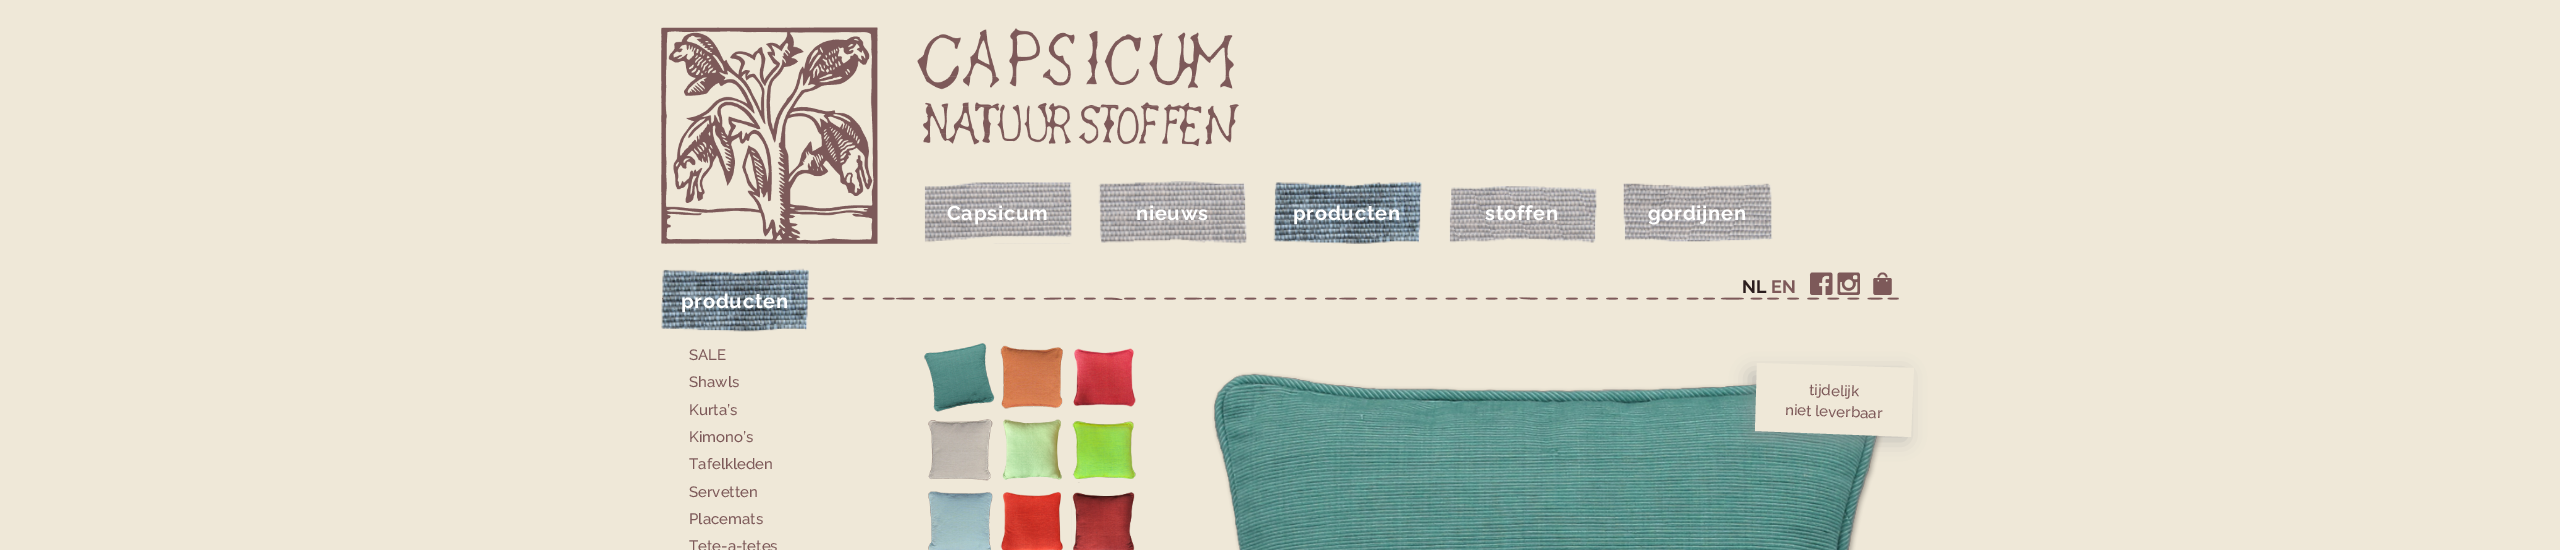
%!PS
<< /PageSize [2560 550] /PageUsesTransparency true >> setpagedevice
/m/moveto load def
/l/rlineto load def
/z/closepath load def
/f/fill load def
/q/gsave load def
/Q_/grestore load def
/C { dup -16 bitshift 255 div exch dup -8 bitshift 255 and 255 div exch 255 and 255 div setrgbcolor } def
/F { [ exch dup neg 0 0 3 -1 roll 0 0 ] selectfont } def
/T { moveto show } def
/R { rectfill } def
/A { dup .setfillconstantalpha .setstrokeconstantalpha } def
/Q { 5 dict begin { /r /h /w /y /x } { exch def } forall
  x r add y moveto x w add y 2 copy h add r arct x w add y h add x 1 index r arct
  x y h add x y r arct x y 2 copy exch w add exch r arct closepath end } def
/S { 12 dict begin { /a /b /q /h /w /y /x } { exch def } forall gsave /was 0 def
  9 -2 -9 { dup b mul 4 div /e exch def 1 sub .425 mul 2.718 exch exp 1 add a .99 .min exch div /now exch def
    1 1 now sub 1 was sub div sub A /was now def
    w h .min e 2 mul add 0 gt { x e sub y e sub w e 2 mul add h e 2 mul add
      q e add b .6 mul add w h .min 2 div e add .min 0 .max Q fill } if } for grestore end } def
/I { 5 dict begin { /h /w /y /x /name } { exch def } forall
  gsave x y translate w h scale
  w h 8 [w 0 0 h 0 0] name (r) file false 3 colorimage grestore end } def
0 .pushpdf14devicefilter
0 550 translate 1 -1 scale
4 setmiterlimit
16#EFE8D8 C
0 0 2560 550 R
(1.rgb) 661 27 217 217 I
(2.rgb) 917 28 322 119 I
(3.rgb) 924 182 148 62 I
/Raleway-Bold 20 F
16#FFFFFF C
947 220 m .75 0 (Capsicum) ashow
(4.rgb) 1098 181 149 63 I
1136 220 m .75 0 (nieuws) ashow
(5.rgb) 1273 181 149 63 I
1293 220 m .75 0 (producten) ashow
(6.rgb) 1449 186 148 57 I
1485 220 m .75 0 (stoffen) ashow
(7.rgb) 1622 183 151 59 I
1648 220 m .75 0 (gordijnen) ashow
(8.rgb) 662 297 1237 3 I
/Raleway-Bold 18 F
16#2B1D1D C
(NL) 1742 293 T
16#7D5959 C
(EN) 1771 293 T
(9.rgb) 1809 272 24 23 I
(10.rgb) 1837 272 23 23 I
(11.rgb) 1873 272 19 23 I
(12.rgb) 661 268 148 64 I
/Raleway-Bold 20 F
16#FFFFFF C
681 308 m .75 0 (producten) ashow
/Raleway-Medium 15 F
16#7D5959 C
(SALE) 689 360 T
(Shawls) 689 387 T
(Kurta’s) 689 415 T
(Kimono’s) 689 442 T
(Tafelkleden) 689 469 T
(Servetten) 689 497 T
(Placemats) 689 524 T
(Tete-a-tetes) 689 551 T
(13.rgb) 924 343 71 69 I
(14.rgb) 1000 345 63 64 I
(15.rgb) 1073 348 63 59 I
(16.rgb) 928 419 65 62 I
(17.rgb) 1002 419 60 61 I
(18.rgb) 1072 421 64 62 I
(19.rgb) 928 491 65 59 I
(20.rgb) 1000 492 63 58 I
(21.rgb) 1071 492 64 58 I
(22.rgb) 1212 372 671 178 I
16#8F8F8F C
1750 373 156 67 0 9.5 .5 S
16#EFE8D8 C
1757 363 m 157 5 l -3 69 l -156 -6 l z f
16#7D5959 C
q 1809 395 translate 2 rotate 0 0 m (tijdelijk) show Q_
q 1785 415 translate 2 rotate 0 0 m (niet leverbaar) show Q_
.poppdf14devicefilter showpage
